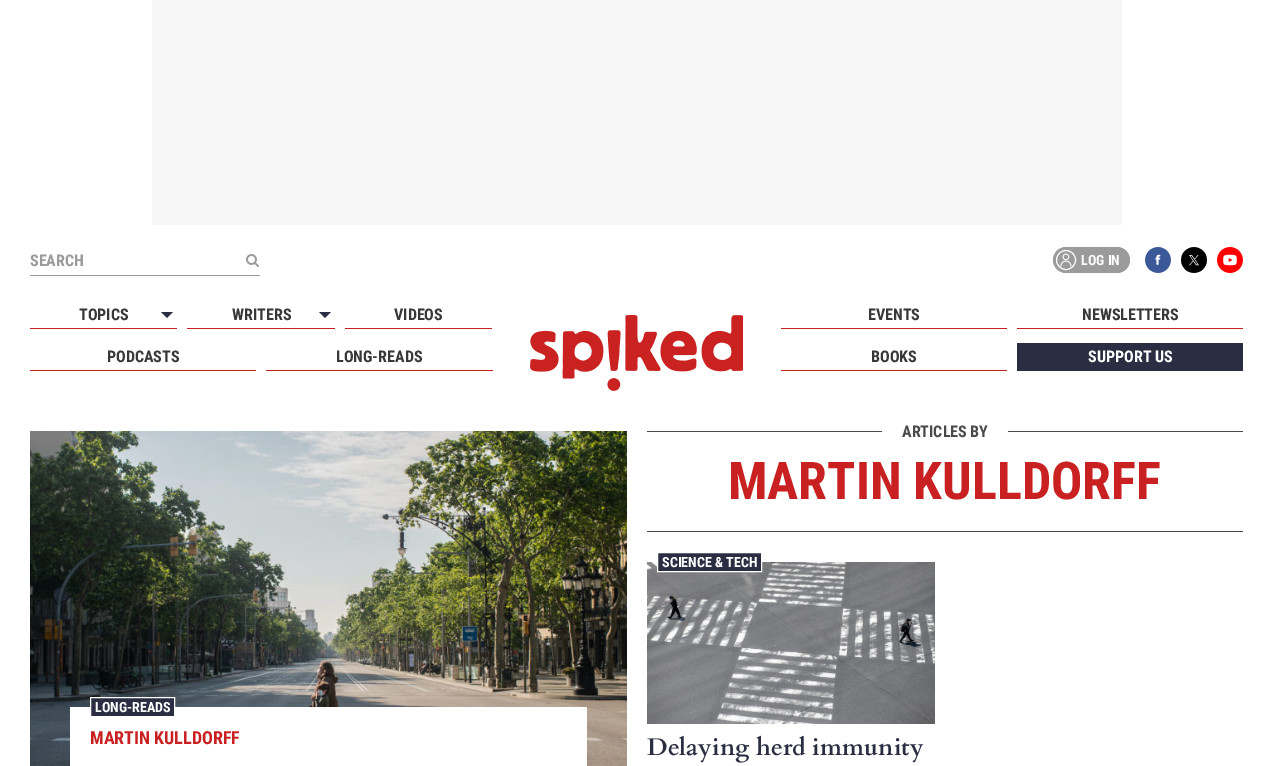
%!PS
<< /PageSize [1273 766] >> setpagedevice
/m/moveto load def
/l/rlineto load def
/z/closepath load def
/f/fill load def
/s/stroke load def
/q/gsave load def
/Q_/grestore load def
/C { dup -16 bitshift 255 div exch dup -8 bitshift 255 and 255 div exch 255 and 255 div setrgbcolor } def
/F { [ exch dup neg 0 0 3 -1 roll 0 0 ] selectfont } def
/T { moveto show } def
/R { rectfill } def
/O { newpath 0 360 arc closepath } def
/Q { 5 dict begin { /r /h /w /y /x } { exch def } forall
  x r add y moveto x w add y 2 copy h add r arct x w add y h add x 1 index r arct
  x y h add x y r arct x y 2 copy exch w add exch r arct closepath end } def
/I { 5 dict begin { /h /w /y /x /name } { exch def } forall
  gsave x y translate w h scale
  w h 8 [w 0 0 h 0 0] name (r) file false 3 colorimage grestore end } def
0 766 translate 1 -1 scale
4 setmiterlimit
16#FFFFFF C
0 0 1273 766 R
16#F6F6F6 C
152 0 970 225 R
16#9B9B9B C
30 275 230 1 R
/RobotoCondensed-Bold 16 F
(SEARCH) 30 266 T
(1.rgb) 246 254 13 13 I
1053 247 77 26 13 Q f
(2.rgb) 1060 253 12 14 I
16#FFFFFF C
1066 260 9.5 O s
/RobotoCondensed-Bold 14 F
(LOG IN) 1081 265 T
(3.rgb) 1145 247 26 26 I
(4.rgb) 1181 247 26 26 I
(5.rgb) 1217 247 26 26 I
16#C92121 C
30 328 147 1 R
/RobotoCondensed-Bold 16 F
16#383838 C
(TOPICS) 79 320 T
16#2B2E42 C
161 312 m 12 0 l -6 6 l z f
16#C92121 C
187 328 148 1 R
16#383838 C
(WRITERS) 232 320 T
16#2B2E42 C
319 312 m 12 0 l -6 6 l z f
16#C92121 C
345 328 147 1 R
16#383838 C
(VIDEOS) 394 320 T
16#C92121 C
30 370 226 1 R
16#383838 C
(PODCASTS) 107 362 T
16#C92121 C
266 370 227 1 R
16#383838 C
(LONG-READS) 336 362 T
16#C92121 C
781 328 226 1 R
16#383838 C
(EVENTS) 868 320 T
16#C92121 C
1017 328 226 1 R
16#383838 C
(NEWSLETTERS) 1082 320 T
16#C92121 C
781 370 226 1 R
16#383838 C
(BOOKS) 871 362 T
16#2B2E42 C
1017 343 226 28 R
16#FFFFFF C
(SUPPORT US) 1088 362 T
(6.rgb) 530 315 213 76 I
(7.rgb) 30 431 597 335 I
70 707 517 59 R
16#2B2E42 C
90.5 697.5 m 84 0 l 0 19 l -84 0 l z q f Q_
16#FFFFFF C
s
/RobotoCondensed-Bold 14 F
(LONG-READS) 95 712 T
/RobotoCondensed-Bold 18 F
16#C92121 C
(MARTIN KULLDORFF) 90 744 T
16#4A4A4A C
647 431 596 1 R
647 531 596 1 R
16#FFFFFF C
882 431 126 1 R
/RobotoCondensed-Bold 16 F
16#4A4A4A C
(ARTICLES BY) 902 437 T
/RobotoCondensed-Bold 52 F
16#C92121 C
(MARTIN KULLDORFF) 728 499 T
(8.rgb) 647 562 288 162 I
16#2B2E42 C
657.5 552.5 m 104 0 l 0 19 l -104 0 l z q f Q_
16#FFFFFF C
s
/RobotoCondensed-Bold 14 F
(SCIENCE & TECH) 662 567 T
/Cardo-Bold 24 F
16#2B2E42 C
(Delaying herd immunity) 647 755 T
showpage
